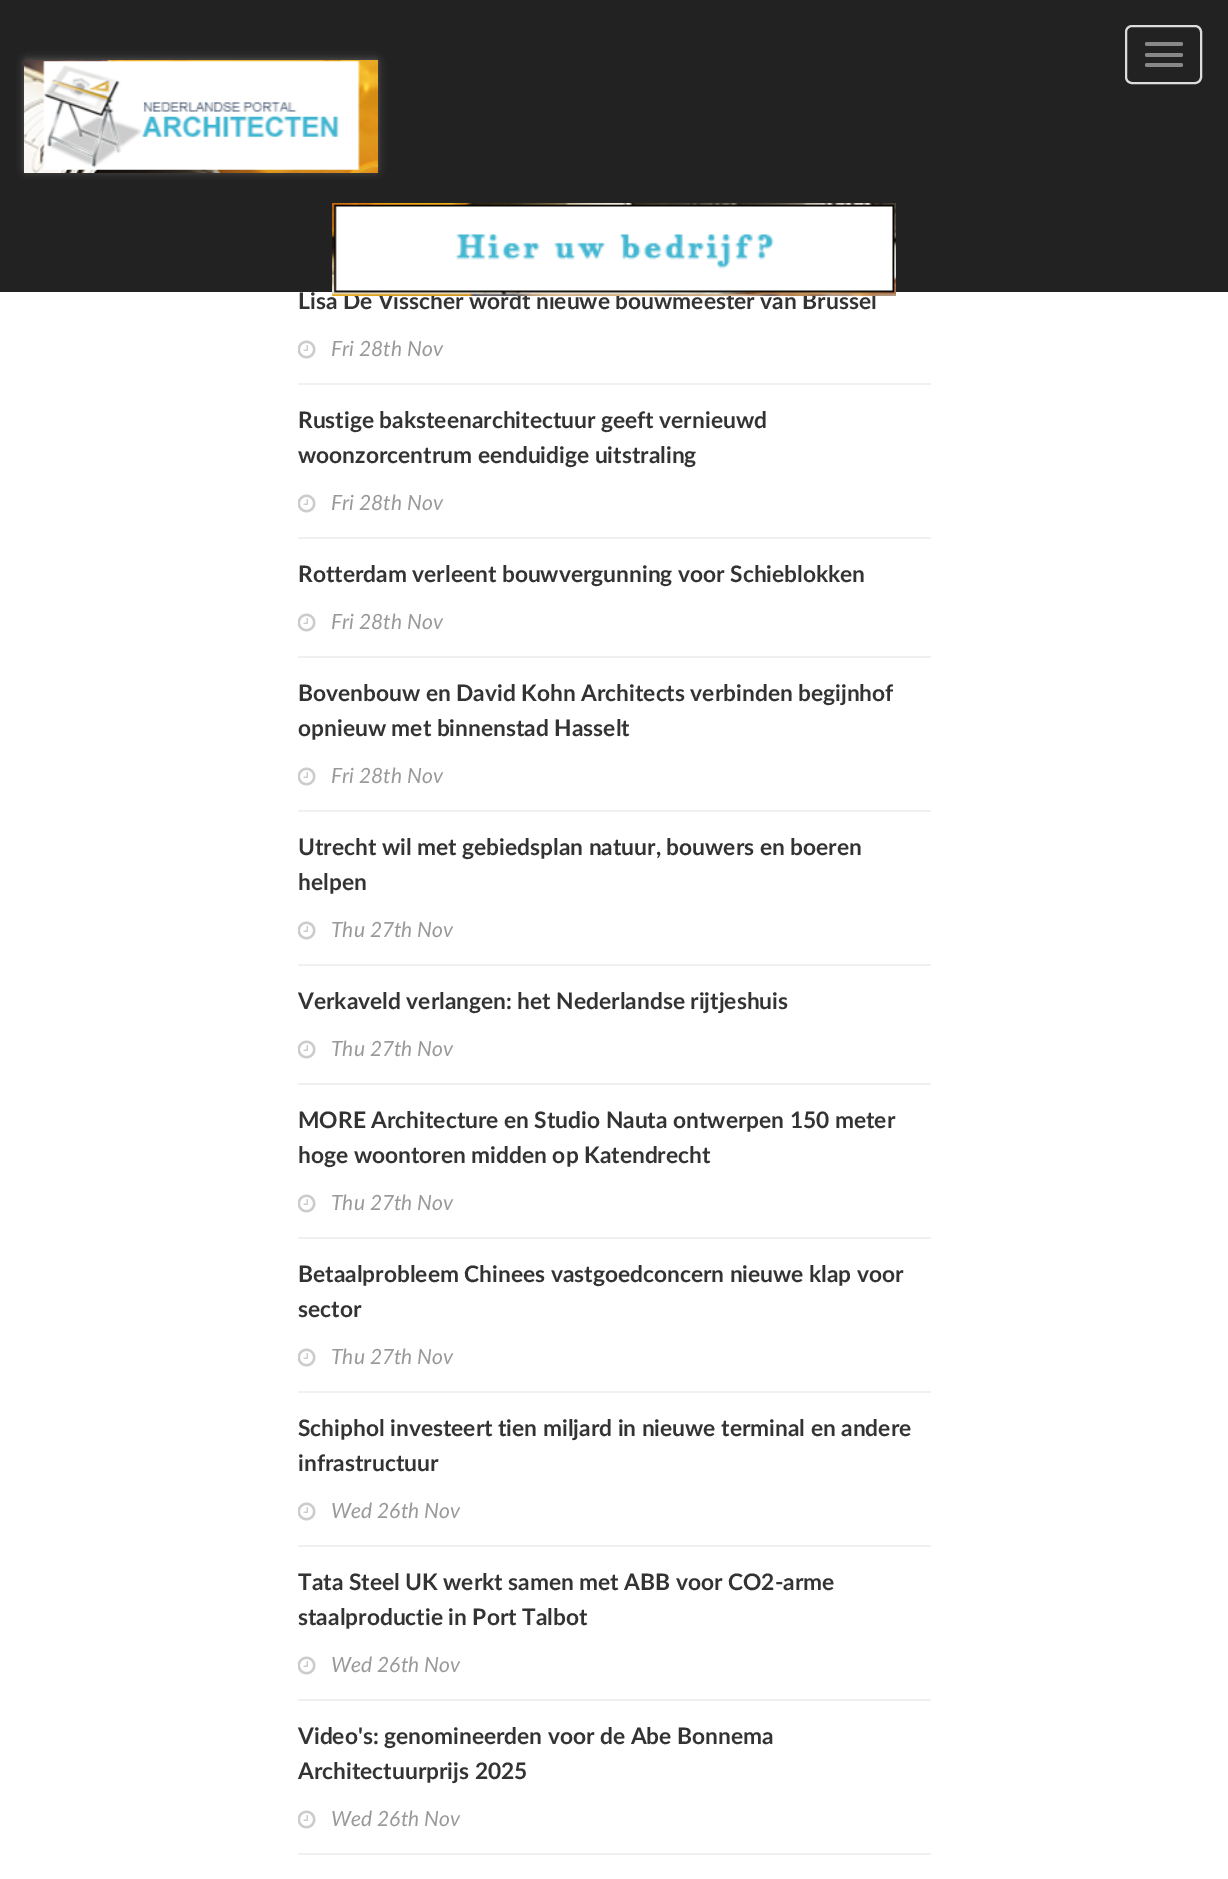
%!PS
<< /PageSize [1228 1879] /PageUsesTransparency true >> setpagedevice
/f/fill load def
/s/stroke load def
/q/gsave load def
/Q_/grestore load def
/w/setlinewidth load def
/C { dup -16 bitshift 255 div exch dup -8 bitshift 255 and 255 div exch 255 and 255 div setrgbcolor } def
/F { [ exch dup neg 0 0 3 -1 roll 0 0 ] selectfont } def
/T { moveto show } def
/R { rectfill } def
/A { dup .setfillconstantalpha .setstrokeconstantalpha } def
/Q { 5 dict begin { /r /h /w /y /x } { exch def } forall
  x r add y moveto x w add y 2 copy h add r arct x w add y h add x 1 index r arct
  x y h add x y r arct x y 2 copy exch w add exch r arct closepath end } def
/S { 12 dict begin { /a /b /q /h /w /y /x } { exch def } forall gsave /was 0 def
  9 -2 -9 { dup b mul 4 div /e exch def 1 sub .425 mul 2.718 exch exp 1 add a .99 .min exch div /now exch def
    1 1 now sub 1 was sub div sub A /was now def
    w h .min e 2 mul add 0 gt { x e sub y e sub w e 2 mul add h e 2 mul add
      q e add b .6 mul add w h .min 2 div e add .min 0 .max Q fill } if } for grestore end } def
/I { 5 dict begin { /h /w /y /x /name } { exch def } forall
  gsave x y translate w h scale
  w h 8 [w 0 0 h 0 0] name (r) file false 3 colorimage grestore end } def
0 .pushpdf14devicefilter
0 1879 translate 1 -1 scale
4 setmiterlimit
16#FFFFFF C
0 0 1228 1879 R
16#222222 C
0 0 1228 292 R
16#777777 C
26 61 350 109 0 4.5 1 S
(1.rgb) 24 60 354 113 I
16#DDDDDD C
2 w
1126 26 75 57 6 Q s
16#888888 C
1145 42 38 4 2 Q f
1145 53 38 4 2 Q f
1145 63 38 4 2 Q f
/Lato-Bold 22.75 F
16#333333 C
(Lisa De Visscher wordt nieuwe bouwmeester van Brussel) 298 309 T
(2.rgb) 332 203 564 93 I
16#F0F0F0 C
298 383 633 2 R
(3.rgb) 298 340 18 19 I
/Lato-Italic 21 F
16#999999 C
(Fri 28th Nov) 331 356 T
16#F0F0F0 C
298 537 633 2 R
/Lato-Bold 22.75 F
16#333333 C
(Rustige baksteenarchitectuur geeft vernieuwd) 298 428 T
(woonzorcentrum eenduidige uitstraling) 298 463 T
(4.rgb) 298 494 18 19 I
/Lato-Italic 21 F
16#999999 C
(Fri 28th Nov) 331 510 T
16#F0F0F0 C
298 656 633 2 R
/Lato-Bold 22.75 F
16#333333 C
(Rotterdam verleent bouwvergunning voor Schieblokken) 298 582 T
(3.rgb) 298 613 18 19 I
/Lato-Italic 21 F
16#999999 C
(Fri 28th Nov) 331 629 T
16#F0F0F0 C
298 810 633 2 R
/Lato-Bold 22.75 F
16#333333 C
(Bovenbouw en David Kohn Architects verbinden begijnhof) 298 701 T
(opnieuw met binnenstad Hasselt) 298 736 T
(3.rgb) 298 767 18 19 I
/Lato-Italic 21 F
16#999999 C
(Fri 28th Nov) 331 783 T
16#F0F0F0 C
298 964 633 2 R
/Lato-Bold 22.75 F
16#333333 C
(Utrecht wil met gebiedsplan natuur, bouwers en boeren) 298 855 T
(helpen) 298 890 T
(3.rgb) 298 921 18 19 I
/Lato-Italic 21 F
16#999999 C
(Thu 27th Nov) 331 937 T
16#F0F0F0 C
298 1083 633 2 R
/Lato-Bold 22.75 F
16#333333 C
(Verkaveld verlangen: het Nederlandse rijtjeshuis) 298 1009 T
(3.rgb) 298 1040 18 19 I
/Lato-Italic 21 F
16#999999 C
(Thu 27th Nov) 331 1056 T
16#F0F0F0 C
298 1237 633 2 R
/Lato-Bold 22.75 F
16#333333 C
(MORE Architecture en Studio Nauta ontwerpen 150 meter) 298 1128 T
(hoge woontoren midden op Katendrecht) 298 1163 T
(3.rgb) 298 1194 18 19 I
/Lato-Italic 21 F
16#999999 C
(Thu 27th Nov) 331 1210 T
16#F0F0F0 C
298 1391 633 2 R
/Lato-Bold 22.75 F
16#333333 C
(Betaalprobleem Chinees vastgoedconcern nieuwe klap voor) 298 1282 T
(sector) 298 1317 T
(3.rgb) 298 1348 18 19 I
/Lato-Italic 21 F
16#999999 C
(Thu 27th Nov) 331 1364 T
16#F0F0F0 C
298 1545 633 2 R
/Lato-Bold 22.75 F
16#333333 C
(Schiphol investeert tien miljard in nieuwe terminal en andere) 298 1436 T
(infrastructuur) 298 1471 T
(3.rgb) 298 1502 18 19 I
/Lato-Italic 21 F
16#999999 C
(Wed 26th Nov) 331 1518 T
16#F0F0F0 C
298 1699 633 2 R
q
298 1565 633 70 rectclip
/Lato-Bold 22.75 F
16#333333 C
(Tata Steel UK werkt samen met ABB voor CO2-arme) 298 1590 T
Q_
/Lato-Bold 22.75 F
16#333333 C
(staalproductie in Port Talbot) 298 1625 T
(3.rgb) 298 1656 18 19 I
/Lato-Italic 21 F
16#999999 C
(Wed 26th Nov) 331 1672 T
16#F0F0F0 C
298 1853 633 2 R
/Lato-Bold 22.75 F
16#333333 C
(Video's: genomineerden voor de Abe Bonnema) 298 1744 T
(Architectuurprijs 2025) 298 1779 T
(5.rgb) 298 1810 18 19 I
/Lato-Italic 21 F
16#999999 C
(Wed 26th Nov) 331 1826 T
.poppdf14devicefilter showpage
